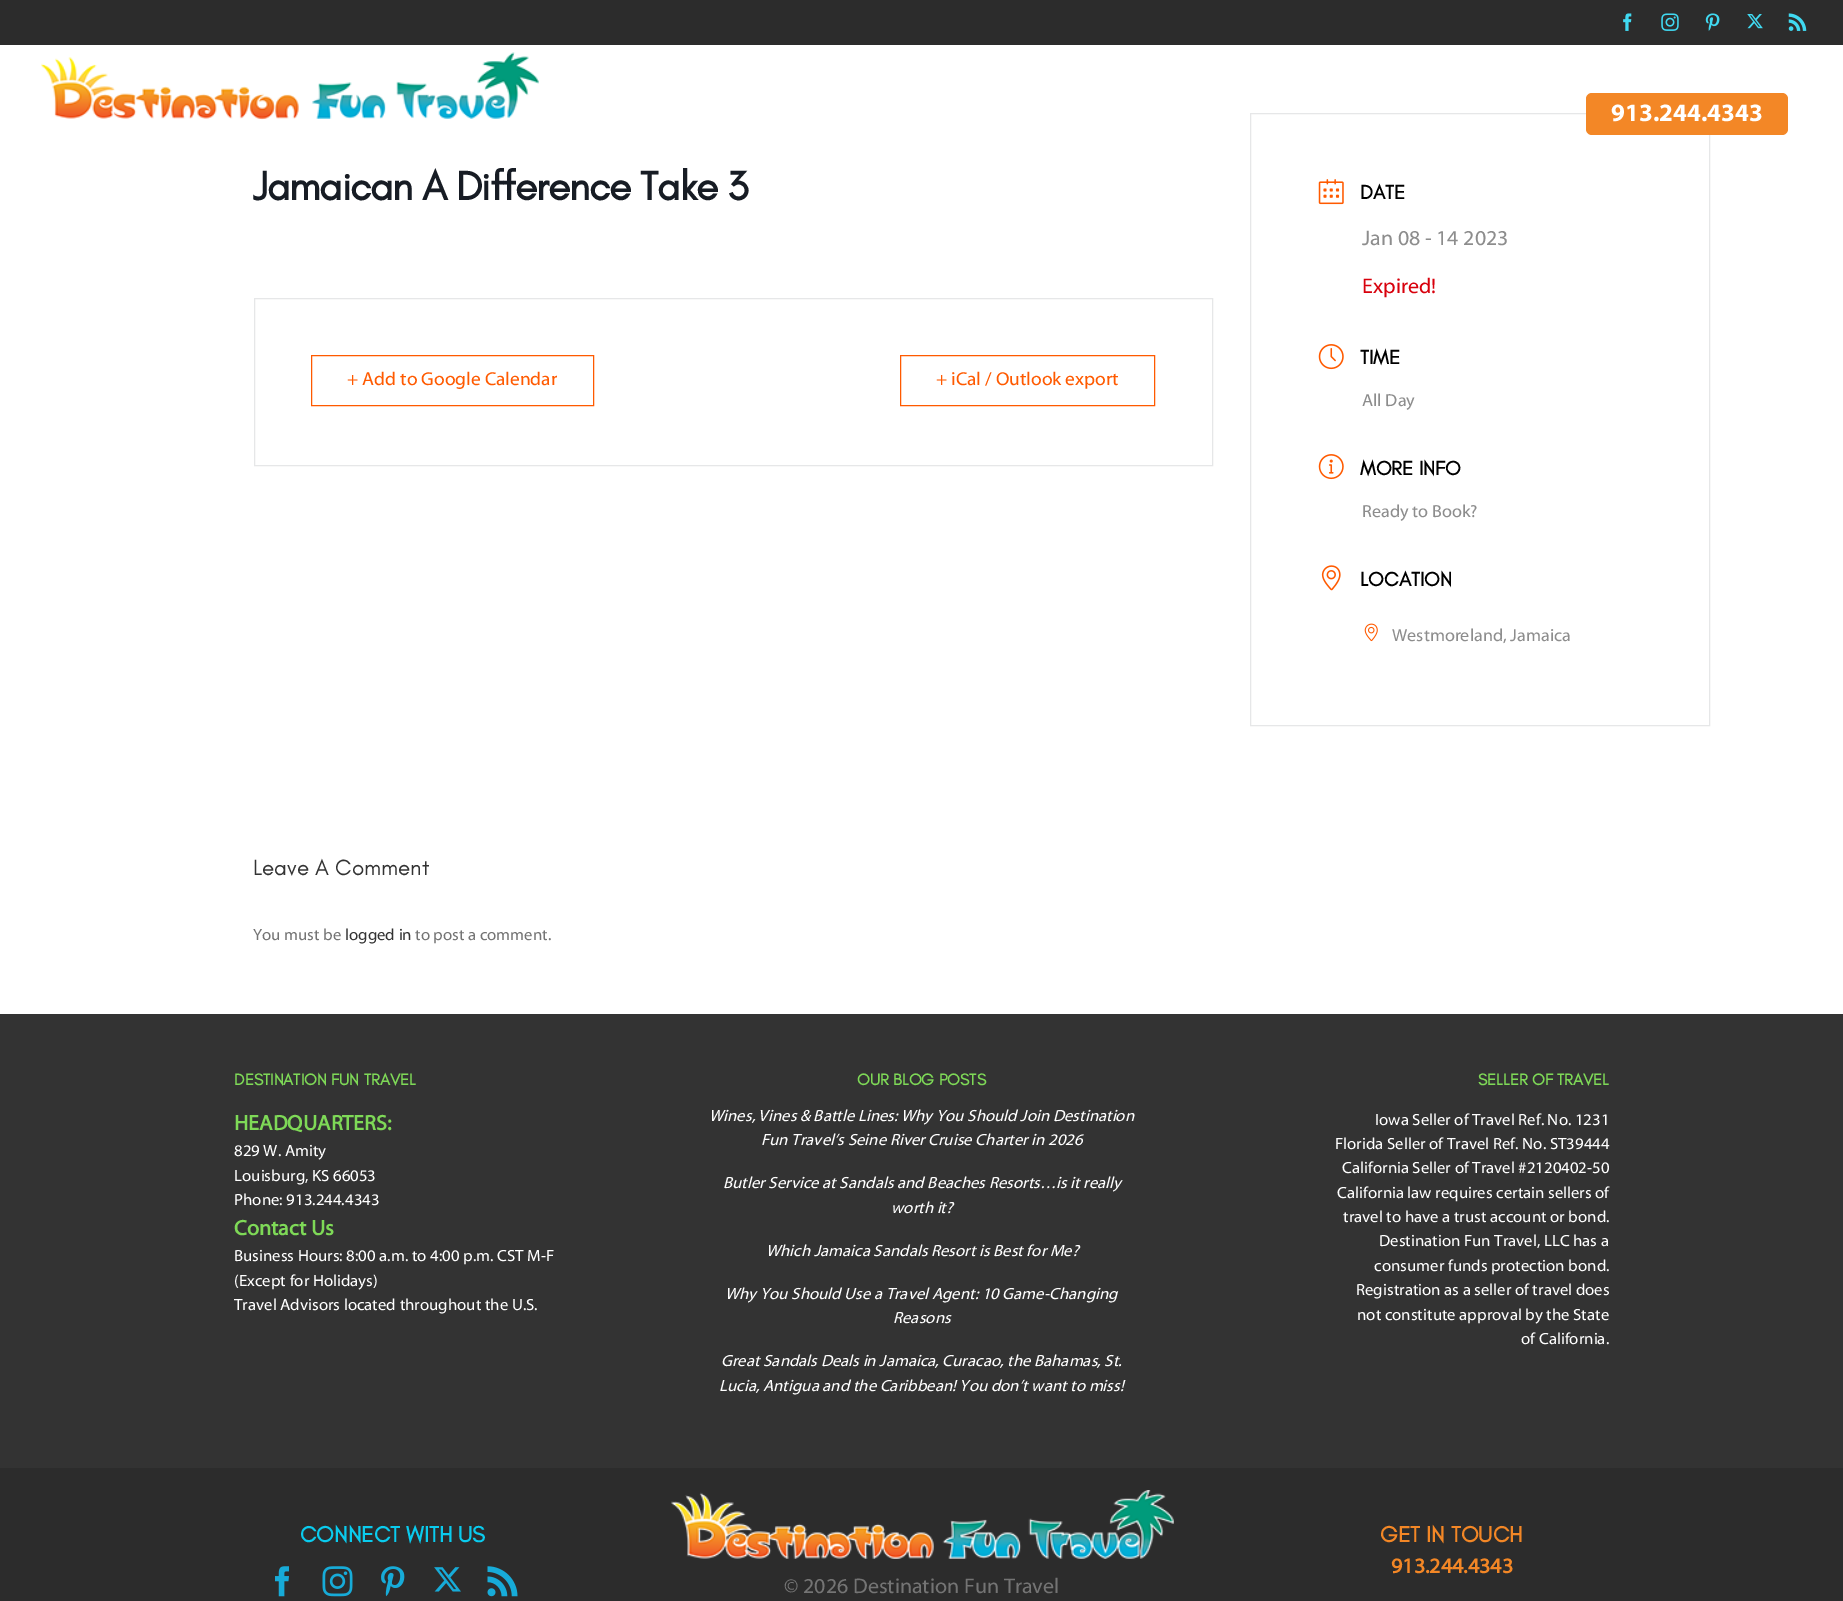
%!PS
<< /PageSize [1843 1601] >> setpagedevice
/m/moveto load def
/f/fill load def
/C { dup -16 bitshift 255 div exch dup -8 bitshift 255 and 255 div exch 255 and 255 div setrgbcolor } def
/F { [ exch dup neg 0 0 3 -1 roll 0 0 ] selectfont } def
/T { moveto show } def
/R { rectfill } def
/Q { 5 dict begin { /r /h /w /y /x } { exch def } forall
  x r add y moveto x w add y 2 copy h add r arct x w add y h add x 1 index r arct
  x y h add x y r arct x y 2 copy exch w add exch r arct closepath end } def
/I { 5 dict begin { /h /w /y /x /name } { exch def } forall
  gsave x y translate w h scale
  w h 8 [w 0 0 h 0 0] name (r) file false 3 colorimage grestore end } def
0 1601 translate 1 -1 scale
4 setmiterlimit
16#FFFFFF C
0 0 1843 1601 R
16#2C2C2C C
0 0 1843 45 R
(1.rgb) 1623 13 9 18 I
(2.rgb) 1661 13 18 18 I
(3.rgb) 1705 13 15 18 I
(4.rgb) 1747 14 16 15 I
(5.rgb) 1788 13 19 18 I
(6.rgb) 41 52 498 68 I
16#E6E7E8 C
1250.5 113.5 459 612 rectstroke
16#F38726 C
1586 93 202 42 6 Q f
/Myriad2-Bold 25 F
16#FFFFFF C
(913.244.4343) 1611 121 T
/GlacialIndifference-Bold 41.25 F
16#171C24 C
253 200 m -1.25 0 (Jamaican A Difference Take 3) ashow
16#E6E7E8 C
254.5 298.5 958 167 rectstroke
16#FF5A00 C
311.5 355.5 282 50 rectstroke
/Myriad-Regular 18.75 F
(+ Add to Google Calendar) 347 385 T
900.5 355.5 254 50 rectstroke
(+ iCal / Outlook export) 936 385 T
(7.rgb) 1318 179 26 26 I
/GlacialIndifference-Bold 20 F
16#000000 C
(DATE) 1360 199 T
/Myriad-Regular 21.25 F
16#8D8D8D C
(Jan 08 - 14 2023) 1362 245 T
16#D8000C C
(Expired!) 1362 293 T
(8.rgb) 1318 344 26 26 I
/GlacialIndifference-Bold 20 F
16#000000 C
(TIME) 1360 364 T
/Myriad-Regular 17.5 F
16#8D8D8D C
(All Day) 1362 406 T
(9.rgb) 1318 454 26 26 I
/GlacialIndifference-Bold 20 F
16#000000 C
(MORE INFO) 1360 475 T
/Myriad-Regular 17.5 F
16#8D8D8D C
(Ready to Book?) 1362 517 T
(10.rgb) 1321 565 20 26 I
/GlacialIndifference-Bold 20 F
16#000000 C
(LOCATION) 1360 586 T
(11.rgb) 1364 623 14 19 I
/Myriad-Regular 17.5 F
16#8D8D8D C
(Westmoreland, Jamaica) 1392 641 T
/GlacialIndifference-Regular 22.5 F
16#333333 C
(Leave A Comment) 253 875 T
/Myriad-Regular 16.25 F
16#747474 C
(You must be) 253 940 T
16#333333 C
(logged in) 345 940 T
16#747474 C
(to post a comment.) 415 940 T
16#333333 C
0 1014 1843 454 R
/GlacialIndifference-Bold 16.25 F
16#7ED957 C
(DESTINATION FUN TRAVEL) 234 1085 T
/Myriad-Bold 21.25 F
(HEADQUARTERS:) 234 1130 T
/Myriad-Regular 16.25 F
16#FFFFFF C
(829 W. Amity) 234 1156 T
(Louisburg, KS 66053) 234 1181 T
(Phone: 913.244.4343) 234 1205 T
/Myriad-Bold 21.25 F
16#7ED957 C
(Contact Us) 234 1235 T
/Myriad-Regular 16.25 F
16#FFFFFF C
(Business Hours: 8:00 a.m. to 4:00 p.m. CST M-F) 234 1261 T
(\(Except for Holidays\)) 234 1286 T
(Travel Advisors located throughout the U.S.) 234 1310 T
/GlacialIndifference-Bold 16.25 F
16#7ED957 C
(OUR BLOG POSTS) 857 1085 T
/Myriad-Italic 16.25 F
16#FFFFFF C
(Wines, Vines & Battle Lines: Why You Should Join Destination) 709 1121 T
(Fun Travel’s Seine River Cruise Charter in 2026) 761 1145 T
(Butler Service at Sandals and Beaches Resorts…is it really) 723 1188 T
(worth it?) 891 1213 T
(Which Jamaica Sandals Resort is Best for Me?) 766 1256 T
(Why You Should Use a Travel Agent: 10 Game-Changing) 725 1299 T
(Reasons) 893 1323 T
(Great Sandals Deals in Jamaica, Curacao, the Bahamas, St.) 721 1366 T
(Lucia, Antigua and the Caribbean! You don’t want to miss!) 719 1391 T
/GlacialIndifference-Bold 16.25 F
16#7ED957 C
(SELLER OF TRAVEL) 1478 1085 T
/Myriad-Regular 16.25 F
16#FFFFFF C
(Iowa Seller of Travel Ref. No. 1231) 1375 1125 T
(Florida Seller of Travel Ref. No. ST39444) 1335 1149 T
(California Seller of Travel #2120402-50) 1342 1173 T
(California law requires certain sellers of) 1337 1198 T
(travel to have a trust account or bond.) 1343 1222 T
(Destination Fun Travel, LLC has a) 1379 1246 T
(consumer funds protection bond.) 1374 1271 T
(Registration as a seller of travel does) 1356 1295 T
(not constitute approval by the State) 1357 1320 T
(of California.) 1521 1344 T
16#2C2C2C C
0 1468 1843 133 R
/GlacialIndifference-Bold 22.5 F
16#0ACBEE C
(CONNECT WITH US) 300 1542 T
(12.rgb) 275 1566 14 31 I
(13.rgb) 322 1566 31 31 I
(14.rgb) 381 1566 24 31 I
(15.rgb) 434 1567 27 25 I
(16.rgb) 487 1566 31 31 I
16#F38726 C
(GET IN TOUCH) 1380 1542 T
/Myriad-Bold 21.25 F
(913.244.4343) 1391 1573 T
(17.rgb) 671 1490 503 69 I
/Myriad-Regular 21.25 F
16#747474 C
(© 2026 Destination Fun Travel) 784 1593 T
showpage
